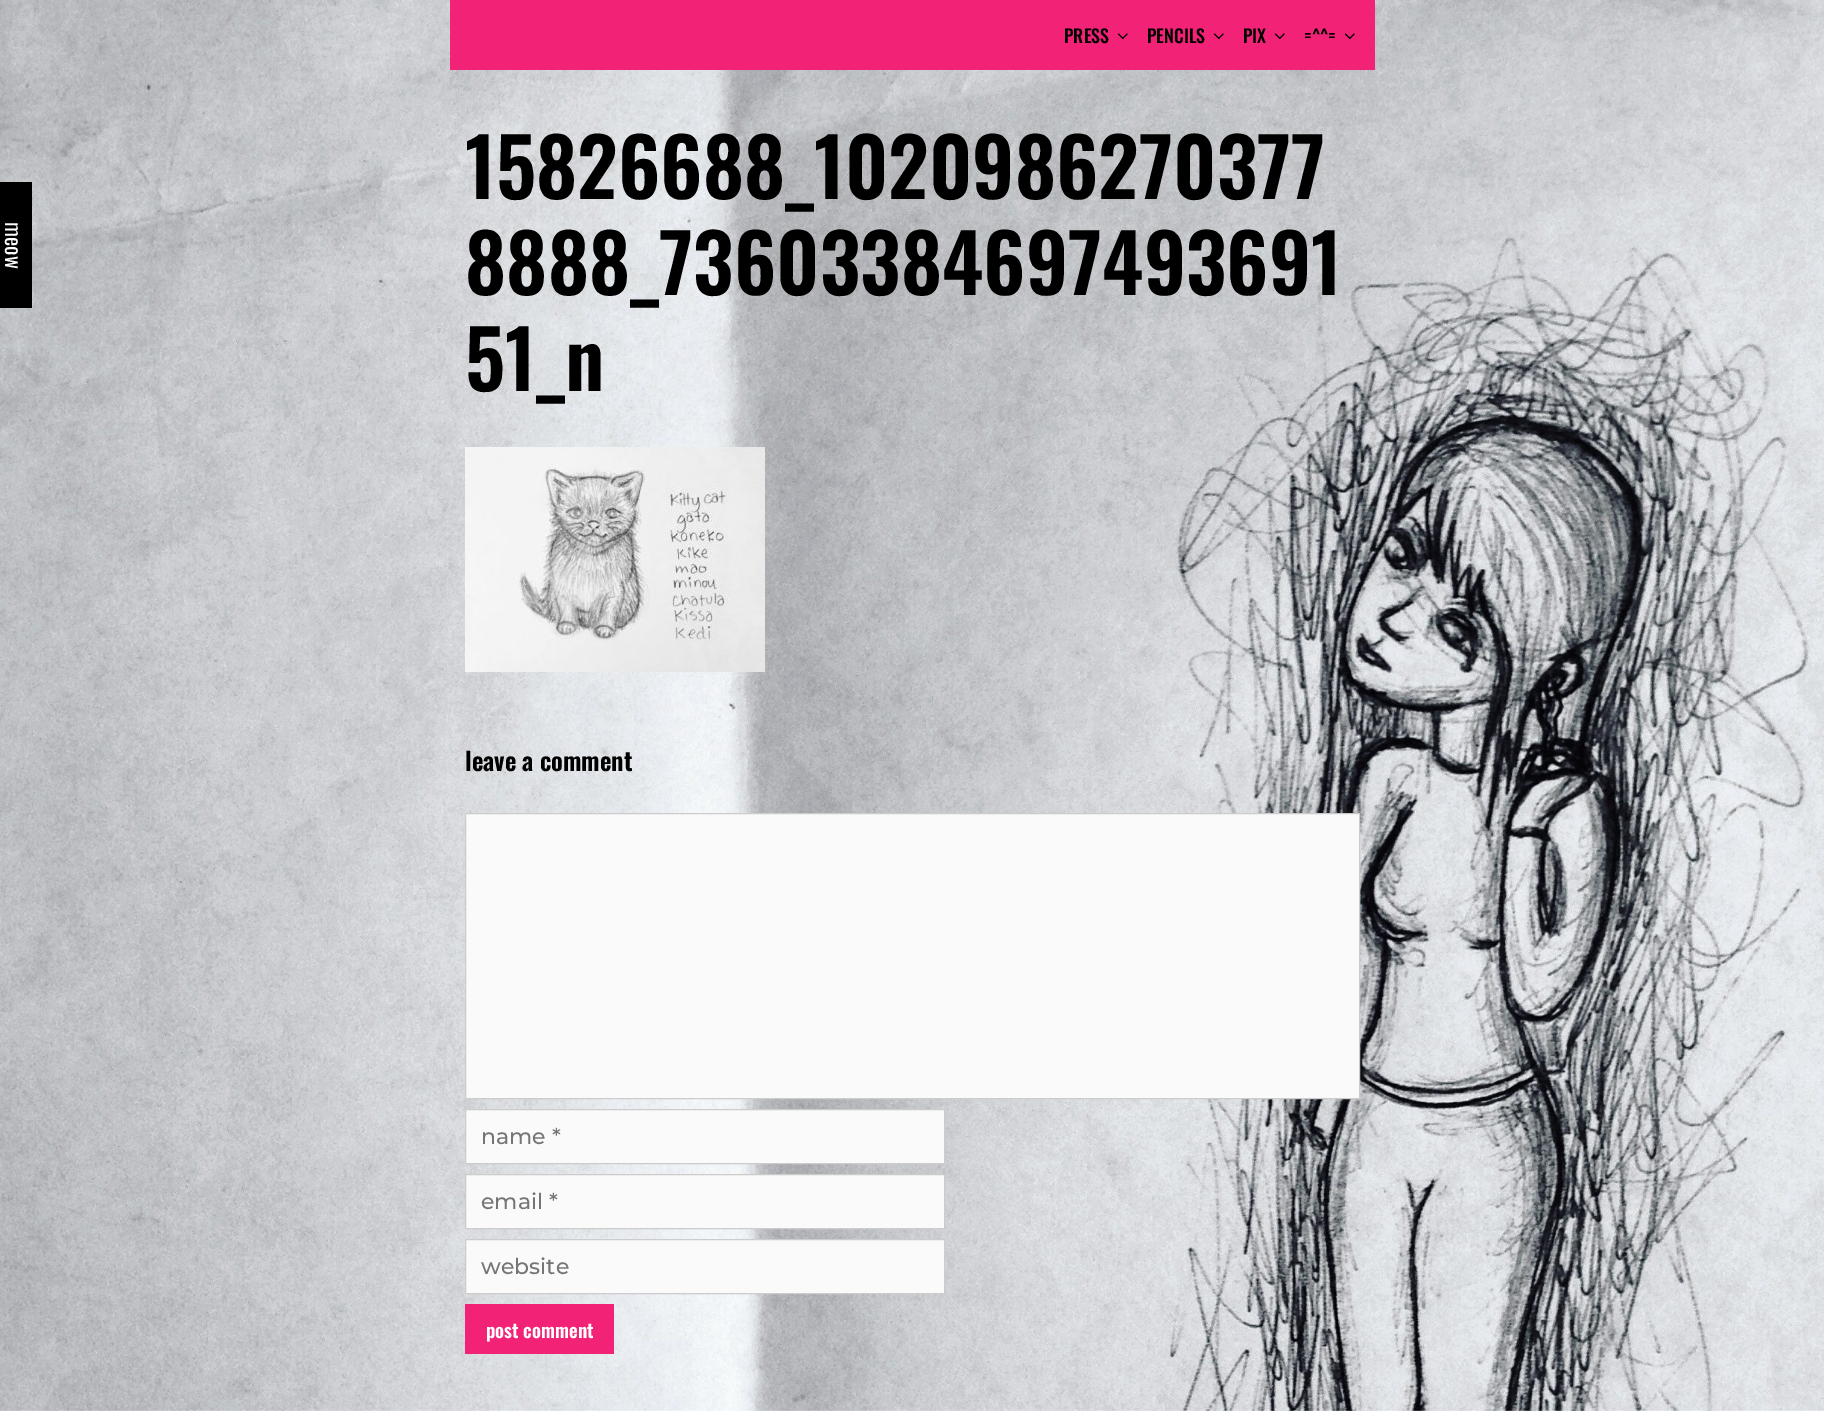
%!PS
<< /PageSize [1824 1411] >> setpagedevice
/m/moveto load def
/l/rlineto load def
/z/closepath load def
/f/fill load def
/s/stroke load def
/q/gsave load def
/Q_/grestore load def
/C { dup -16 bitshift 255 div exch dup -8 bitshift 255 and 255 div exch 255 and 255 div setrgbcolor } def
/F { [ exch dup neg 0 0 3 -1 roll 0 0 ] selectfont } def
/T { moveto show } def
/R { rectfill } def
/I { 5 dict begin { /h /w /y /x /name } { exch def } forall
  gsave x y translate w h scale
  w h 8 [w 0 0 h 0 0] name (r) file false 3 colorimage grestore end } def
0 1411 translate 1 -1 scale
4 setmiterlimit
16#FFFFFF C
0 0 1824 1411 R
(1.rgb) 0 0 1824 1411 I
16#F22277 C
450 0 925 70 R
/Oswald-Medium 18 F
16#000000 C
(PRESS) 1064 43 T
(2.rgb) 1117 33 11 7 I
(PENCILS) 1147 43 T
(2.rgb) 1213 33 11 7 I
(PIX) 1243 43 T
(2.rgb) 1274 33 11 7 I
(=^^=) 1304 43 T
(2.rgb) 1344 33 11 7 I
0 182 32 126 R
/Oswald-Regular 22 F
16#FFFFFF C
q 5 222 translate 90 rotate 0 0 m (meow) show Q_
/Oswald-SemiBold 80 F
16#000000 C
(15826688_1020986270377) 465 199 T
(8888_73603384697493691) 465 295 T
(51_n) 465 391 T
(3.rgb) 465 447 300 225 I
/Oswald-SemiBold 25 F
(leave a comment) 465 771 T
16#FAFAFA C
465.5 813.5 m 894 0 l 0 285 l -894 0 l z q f Q_
16#CCCCCC C
s
16#FAFAFA C
465.5 1109.5 m 479 0 l 0 54 l -479 0 l z q f Q_
16#CCCCCC C
s
/Montserrat-Medium 22 F
16#757575 C
(name *) 481 1144 T
16#FAFAFA C
465.5 1174.5 m 479 0 l 0 54 l -479 0 l z q f Q_
16#CCCCCC C
s
16#757575 C
(email *) 481 1209 T
16#FAFAFA C
465.5 1239.5 m 479 0 l 0 54 l -479 0 l z q f Q_
16#CCCCCC C
s
16#757575 C
(website) 481 1274 T
16#F22277 C
465 1304 149 50 R
/Oswald-SemiBold 19 F
16#FFFFFF C
(post comment) 486 1338 T
showpage
